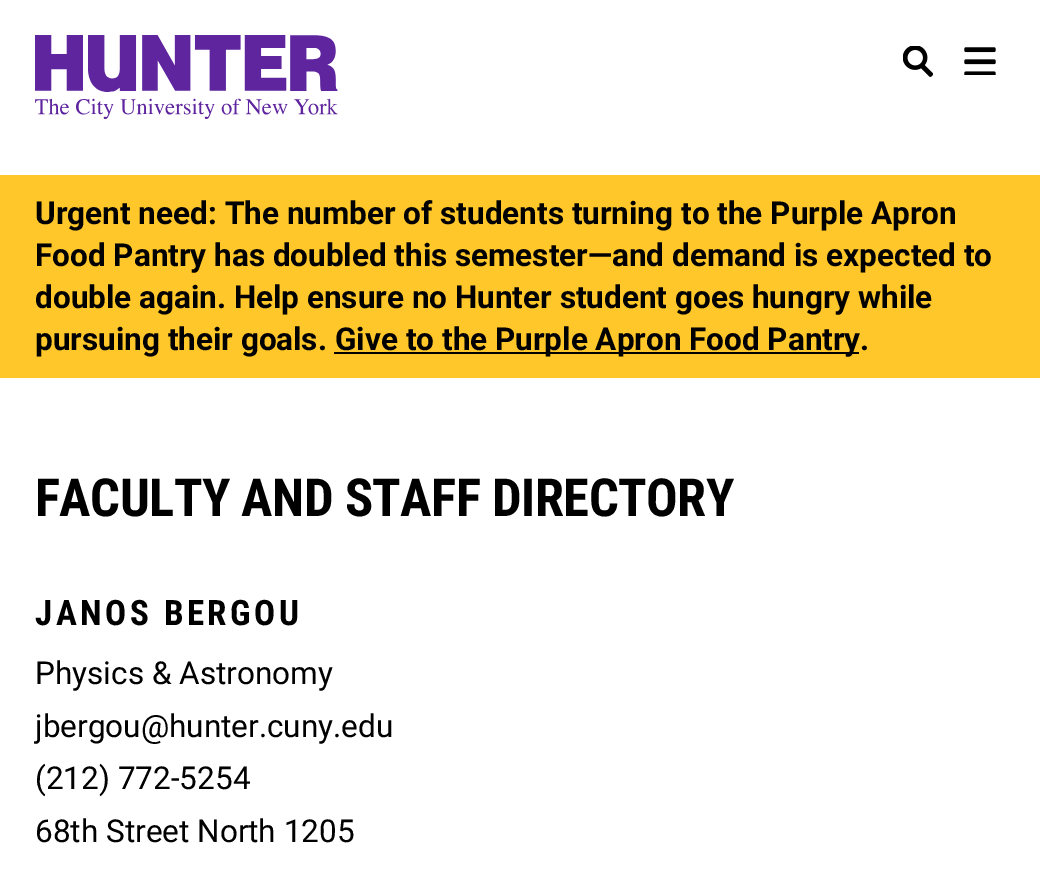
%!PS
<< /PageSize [1040 872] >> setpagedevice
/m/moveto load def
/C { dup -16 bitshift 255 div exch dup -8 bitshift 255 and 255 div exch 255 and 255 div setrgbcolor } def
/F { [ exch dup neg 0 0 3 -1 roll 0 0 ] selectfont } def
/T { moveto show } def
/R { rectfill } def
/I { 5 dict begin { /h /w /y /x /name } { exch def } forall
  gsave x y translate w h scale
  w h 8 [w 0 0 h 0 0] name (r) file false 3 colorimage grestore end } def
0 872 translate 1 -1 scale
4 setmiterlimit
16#FFFFFF C
0 0 1040 872 R
(1.rgb) 35 35 303 84 I
(2.rgb) 903 46 30 31 I
(3.rgb) 964 47 32 28 I
16#FFC72A C
0 175 1040 203 R
/Roboto-Bold 31.5 F
16#000000 C
(Urgent need: The number of students turning to the Purple Apron) 35 224 T
(Food Pantry has doubled this semester—and demand is expected to) 35 266 T
(double again. Help ensure no Hunter student goes hungry while) 35 308 T
(pursuing their goals.) 35 350 T
334 352 525 2 R
(Give to the Purple Apron Food Pantry.) 335 350 T
/RobotoCondensed-Bold 52.5 F
35 516 m -.5 0 (FACULTY AND STAFF DIRECTORY) ashow
/RobotoCondensed-Bold 35 F
35 625 m 3.5 0 (JANOS BERGOU) ashow
/Roboto-Regular 31.5 F
(Physics & Astronomy) 35 684 T
(jbergou@hunter.cuny.edu) 35 737 T
(\(212\) 772-5254) 35 789 T
(68th Street North 1205) 35 842 T
showpage
